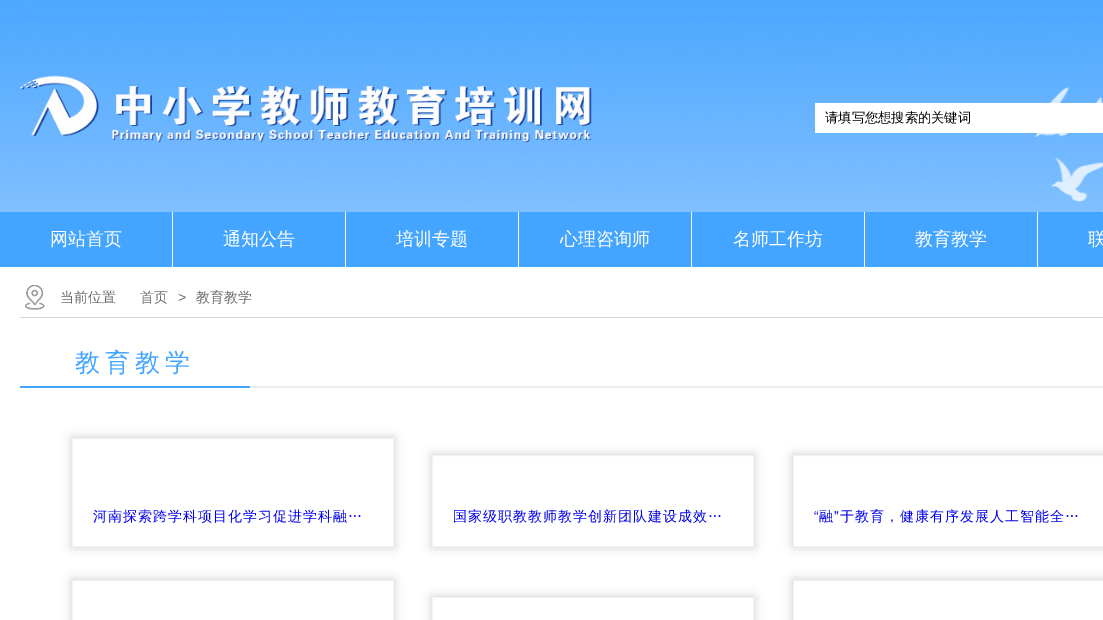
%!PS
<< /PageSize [1103 620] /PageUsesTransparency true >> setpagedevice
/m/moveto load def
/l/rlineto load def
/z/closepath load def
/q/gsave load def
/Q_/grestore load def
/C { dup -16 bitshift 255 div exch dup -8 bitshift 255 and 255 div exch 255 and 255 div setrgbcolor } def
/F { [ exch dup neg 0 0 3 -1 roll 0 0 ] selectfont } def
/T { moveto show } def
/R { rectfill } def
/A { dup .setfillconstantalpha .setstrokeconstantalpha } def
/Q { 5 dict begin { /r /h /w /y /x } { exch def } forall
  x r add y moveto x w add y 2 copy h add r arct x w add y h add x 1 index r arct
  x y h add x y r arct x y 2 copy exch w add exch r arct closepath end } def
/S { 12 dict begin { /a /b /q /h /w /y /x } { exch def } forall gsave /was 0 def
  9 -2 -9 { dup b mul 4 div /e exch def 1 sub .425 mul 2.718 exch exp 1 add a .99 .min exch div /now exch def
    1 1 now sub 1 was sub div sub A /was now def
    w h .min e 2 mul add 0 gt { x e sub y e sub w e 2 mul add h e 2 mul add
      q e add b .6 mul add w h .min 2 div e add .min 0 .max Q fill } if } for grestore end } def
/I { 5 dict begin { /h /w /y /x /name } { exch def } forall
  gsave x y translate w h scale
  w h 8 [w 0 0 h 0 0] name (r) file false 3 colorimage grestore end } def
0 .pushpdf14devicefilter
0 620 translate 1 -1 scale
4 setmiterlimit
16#FFFFFF C
0 0 1103 620 R
(1.rgb) 0 0 1103 212 I
(2.rgb) 19 75 573 68 I
815 103 288 30 R
/WenQuanYiZenHei-Medium 13.25 F
16#000000 C
(请填写您想搜索的关键词) 825 122 T
16#43A5FF C
0 212 1103 55 R
16#FFFFFF C
172 212 1 55 R
/WenQuanYiZenHei-Medium 18 F
(网站首页) 50 245 T
345 212 1 55 R
(通知公告) 223 245 T
518 212 1 55 R
(培训专题) 396 245 T
691 212 1 55 R
(心理咨询师) 560 245 T
864 212 1 55 R
(名师工作坊) 733 245 T
1037 212 1 55 R
(教育教学) 915 245 T
(联) 1088 245 T
16#D5D5D5 C
20 317 1083 1 R
(3.rgb) 25 285 20 25 I
/WenQuanYiZenHei-Medium 14 F
16#6A6A6A C
(当前位置) 60 302 T
(首页) 140 302 T
/LiberationSans-Regular 14 F
(>) 178 302 T
/WenQuanYiZenHei-Medium 14 F
(教育教学) 196 302 T
16#ECECEC C
250 386 853 2 R
16#43A5FF C
20 386 230 2 R
/WenQuanYiZenHei-Medium 25 F
75 371 m 5 0 (教育教学) ashow
q
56 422 m 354 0 l 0 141 l -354 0 l z 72 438 m 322 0 l 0 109 l -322 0 l z eoclip newpath
16#000000 C
72 438 322 109 0 5 .2 S
Q_
16#F3F3F3 C
72.5 438.5 321 108 rectstroke
/WenQuanYiZenHei-Medium 14 F
16#0000EE C
93 521 m 1 0 (河南探索跨学科项目化学习促进学科融…) ashow
q
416 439 m 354 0 l 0 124 l -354 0 l z 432 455 m 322 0 l 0 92 l -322 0 l z eoclip newpath
16#000000 C
432 455 322 92 0 5 .2 S
Q_
16#F3F3F3 C
432.5 455.5 321 91 rectstroke
16#0000EE C
453 521 m 1 0 (国家级职教教师教学创新团队建设成效…) ashow
q
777 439 m 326 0 l 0 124 l -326 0 l z 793 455 m 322 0 l 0 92 l -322 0 l z eoclip newpath
16#000000 C
793 455 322 92 0 5 .2 S
Q_
16#F3F3F3 C
793.5 455.5 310 91 rectstroke
/LiberationSans-Regular 14 F
16#0000EE C
814 521 m 1 0 (“) ashow
/WenQuanYiZenHei-Medium 14 F
819 521 m 1 0 (融) ashow
/LiberationSans-Regular 14 F
834 521 m 1 0 (”) ashow
/WenQuanYiZenHei-Medium 14 F
840 521 m 1 0 (于教育，健康有序发展人工智能全…) ashow
q
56 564 m 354 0 l 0 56 l -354 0 l z 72 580 m 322 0 l 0 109 l -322 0 l z eoclip newpath
16#000000 C
72 580 322 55 0 5 .2 S
Q_
16#F3F3F3 C
72.5 580.5 321 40 rectstroke
q
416 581 m 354 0 l 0 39 l -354 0 l z 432 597 m 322 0 l 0 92 l -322 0 l z eoclip newpath
16#000000 C
432 597 322 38 0 5 .2 S
Q_
432.5 597.5 321 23 rectstroke
q
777 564 m 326 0 l 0 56 l -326 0 l z 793 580 m 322 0 l 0 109 l -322 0 l z eoclip newpath
16#000000 C
793 580 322 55 0 5 .2 S
Q_
793.5 580.5 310 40 rectstroke
.poppdf14devicefilter showpage
